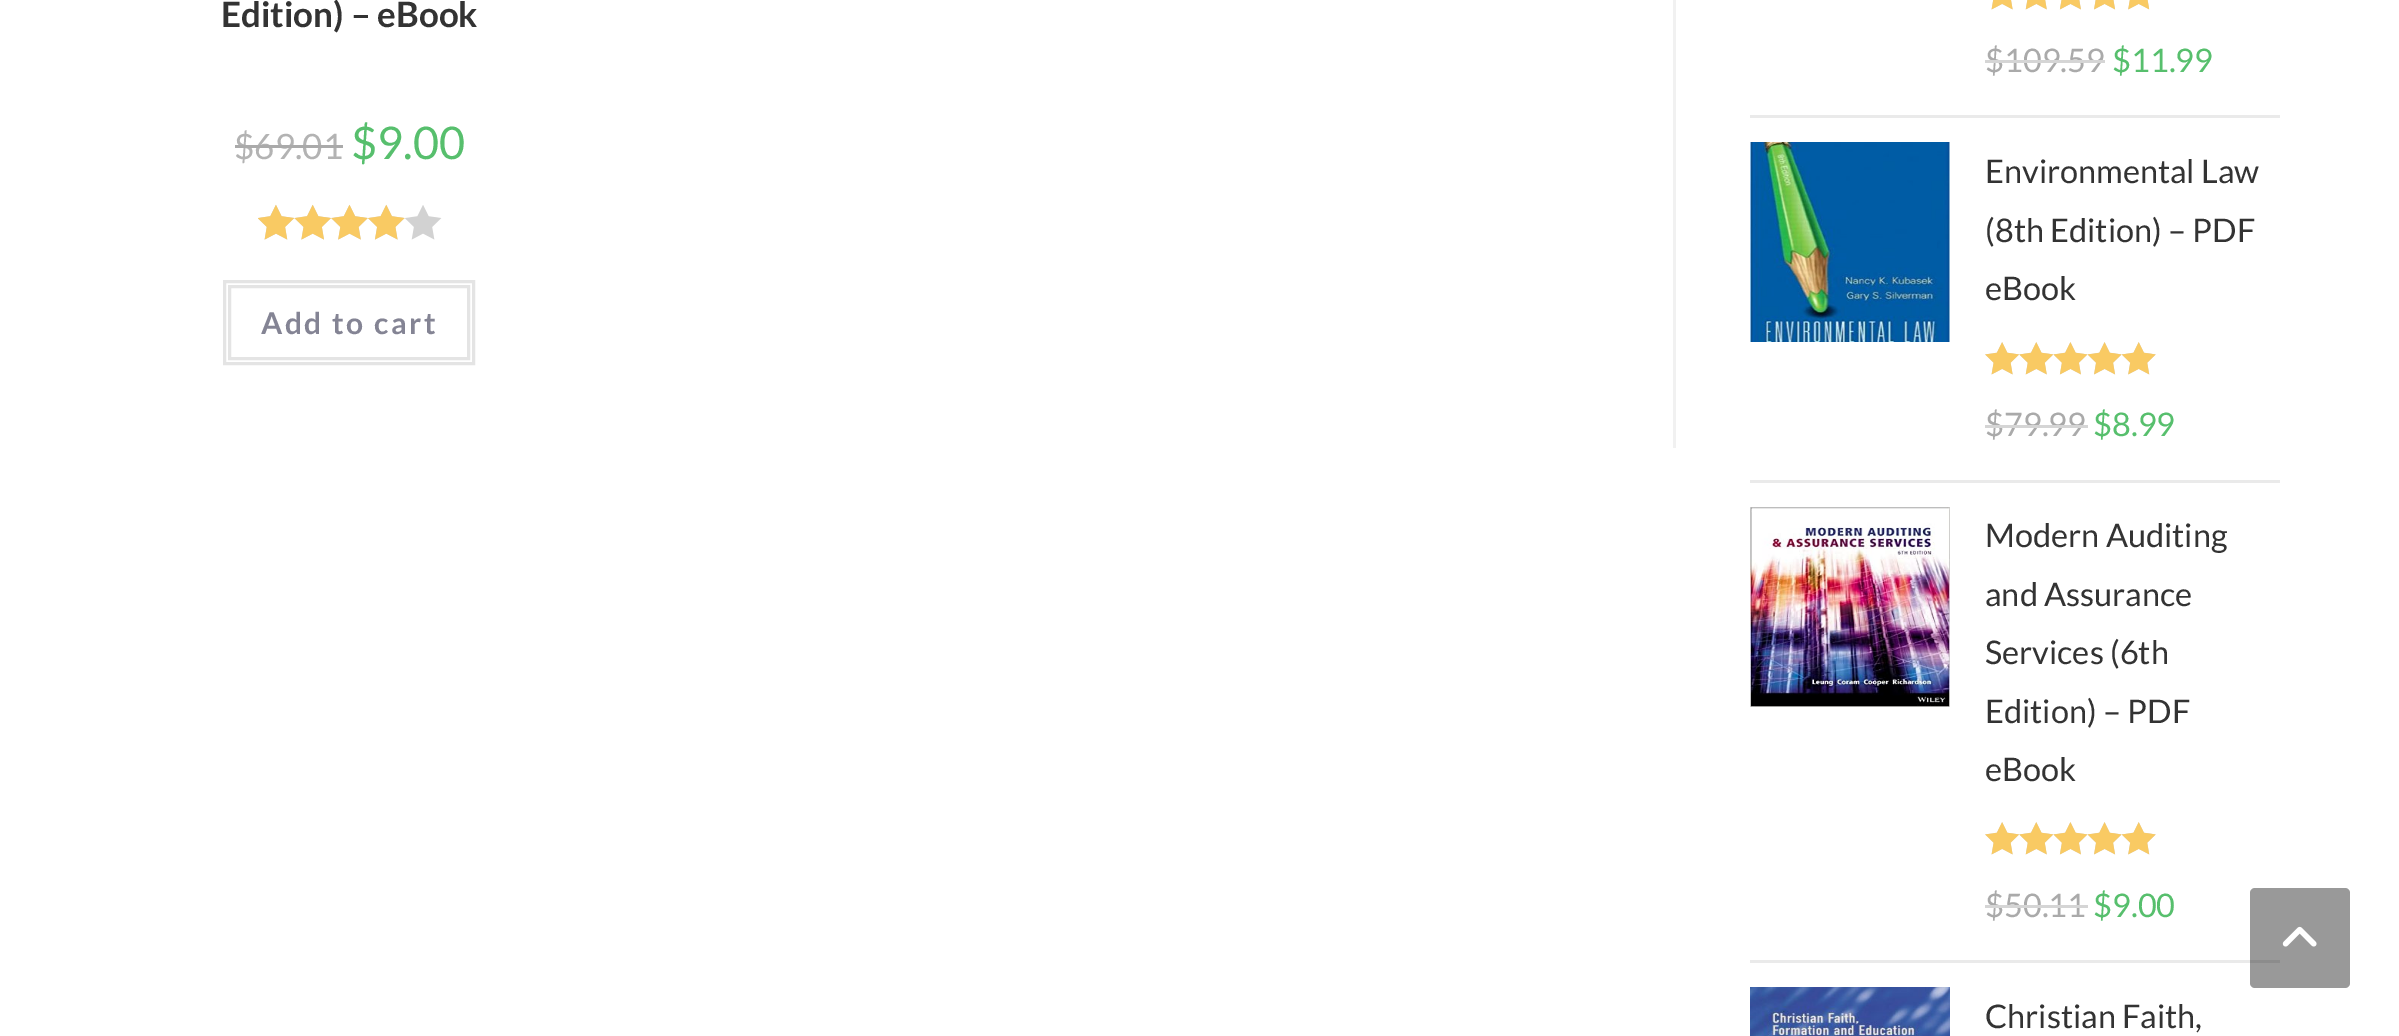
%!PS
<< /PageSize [2399 1036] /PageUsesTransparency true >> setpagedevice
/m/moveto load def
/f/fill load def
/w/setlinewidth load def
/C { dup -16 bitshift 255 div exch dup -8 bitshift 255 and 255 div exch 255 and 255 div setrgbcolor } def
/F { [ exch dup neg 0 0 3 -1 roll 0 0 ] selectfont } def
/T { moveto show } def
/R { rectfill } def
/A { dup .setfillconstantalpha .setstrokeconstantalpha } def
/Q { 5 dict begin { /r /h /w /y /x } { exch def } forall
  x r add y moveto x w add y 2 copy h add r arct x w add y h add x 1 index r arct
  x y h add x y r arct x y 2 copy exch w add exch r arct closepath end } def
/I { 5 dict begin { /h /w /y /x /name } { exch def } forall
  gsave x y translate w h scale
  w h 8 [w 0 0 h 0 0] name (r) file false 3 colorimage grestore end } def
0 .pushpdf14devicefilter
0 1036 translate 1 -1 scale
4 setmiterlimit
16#FFFFFF C
0 0 2399 1036 R
16#F1F1F1 C
1673 0 3 448 R
/Lato-Bold 35 F
16#333333 C
(Edition\) – eBook) 221 27 T
/Lato-Regular 35 F
16#B3B3B3 C
($69.01) 234 159 T
16#AAAAAA C
235 145 108 3 R
/Lato-Regular 45 F
16#57BF6D C
($9.00) 351 159 T
(2.rgb) 258 205 184 35 I
(1.rgb) 258 204 147 36 I
16#E4E4E4 C
3 w
224.5 281.5 249 82 rectstroke
229.5 286.5 239 72 rectstroke
/Lato-Bold 30 F
16#848494 C
261 334 m 2.5 0 (Add to cart) ashow
16#EAEAEA C
1750 115 530 3 R
(3.rgb) 1991 0 158 10 I
(4.rgb) 1991 0 159 10 I
/Lato-Regular 32.5 F
16#AAAAAA C
($109.59) 1985 72 T
16#D5D5D5 C
1985 60 120 3 R
16#57BF6D C
($11.99) 2112 72 T
16#EAEAEA C
1750 480 530 3 R
(5.rgb) 1750 142 200 200 I
16#333333 C
(Environmental Law) 1985 183 T
(\(8th Edition\) – PDF) 1985 242 T
(eBook) 1985 300 T
(6.rgb) 1985 342 171 33 I
(7.rgb) 1985 342 171 33 I
16#AAAAAA C
($79.99) 1985 436 T
16#D5D5D5 C
1985 425 103 3 R
16#57BF6D C
($8.99) 2093 436 T
16#EAEAEA C
1750 960 530 3 R
(8.rgb) 1750 507 200 200 I
16#333333 C
(Modern Auditing) 1985 547 T
(and Assurance) 1985 606 T
(Services \(6th) 1985 664 T
(Edition\) – PDF) 1985 723 T
(eBook) 1985 781 T
(6.rgb) 1985 822 171 33 I
(7.rgb) 1985 822 171 33 I
16#AAAAAA C
($50.11) 1985 917 T
16#D5D5D5 C
1985 905 103 3 R
16#57BF6D C
($9.00) 2093 917 T
(9.rgb) 1750 987 200 49 I
16#333333 C
(Christian Faith,) 1985 1028 T
0.4 A
16#000000 C
2250 888 100 100 5 Q f
1 A
(10.rgb) 2282 926 35 21 I
.poppdf14devicefilter showpage
